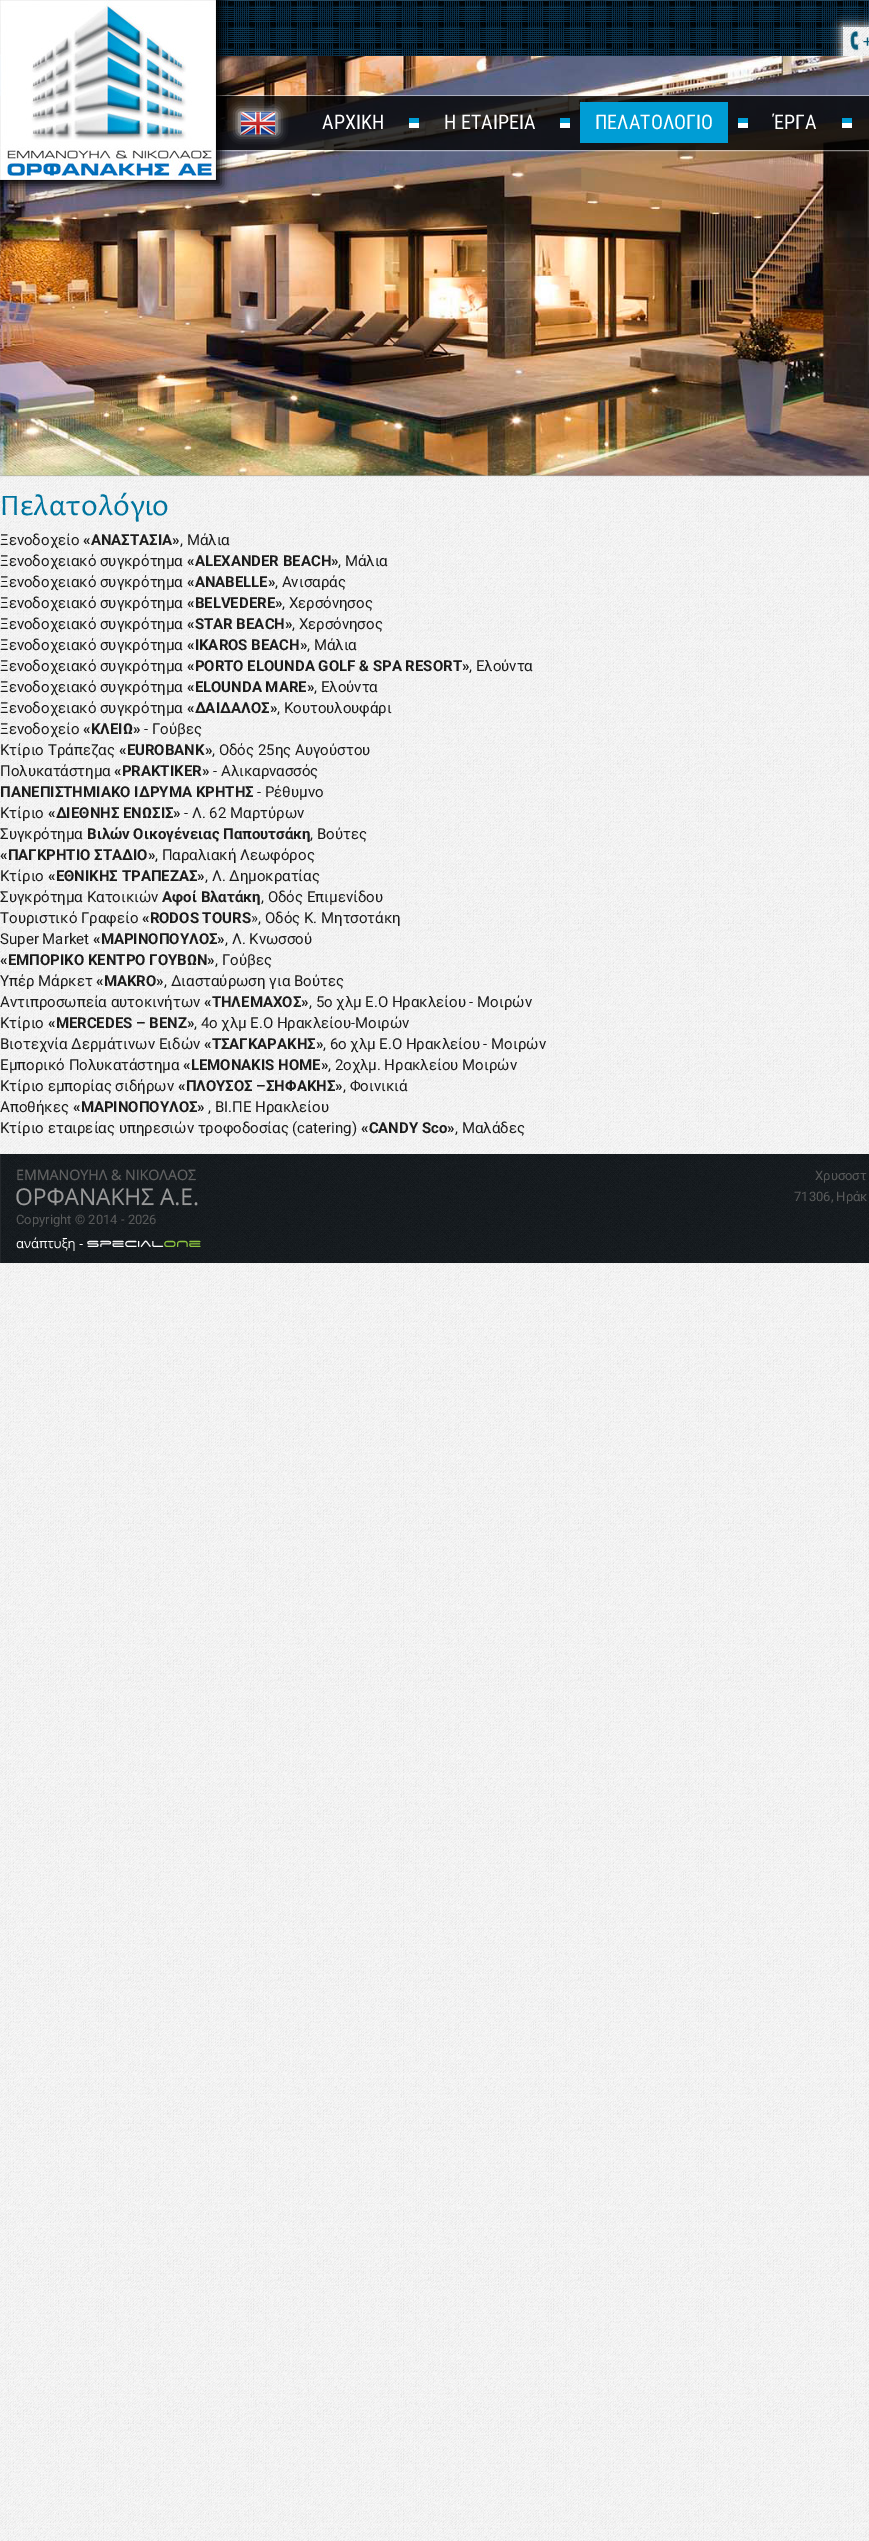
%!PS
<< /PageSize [869 2541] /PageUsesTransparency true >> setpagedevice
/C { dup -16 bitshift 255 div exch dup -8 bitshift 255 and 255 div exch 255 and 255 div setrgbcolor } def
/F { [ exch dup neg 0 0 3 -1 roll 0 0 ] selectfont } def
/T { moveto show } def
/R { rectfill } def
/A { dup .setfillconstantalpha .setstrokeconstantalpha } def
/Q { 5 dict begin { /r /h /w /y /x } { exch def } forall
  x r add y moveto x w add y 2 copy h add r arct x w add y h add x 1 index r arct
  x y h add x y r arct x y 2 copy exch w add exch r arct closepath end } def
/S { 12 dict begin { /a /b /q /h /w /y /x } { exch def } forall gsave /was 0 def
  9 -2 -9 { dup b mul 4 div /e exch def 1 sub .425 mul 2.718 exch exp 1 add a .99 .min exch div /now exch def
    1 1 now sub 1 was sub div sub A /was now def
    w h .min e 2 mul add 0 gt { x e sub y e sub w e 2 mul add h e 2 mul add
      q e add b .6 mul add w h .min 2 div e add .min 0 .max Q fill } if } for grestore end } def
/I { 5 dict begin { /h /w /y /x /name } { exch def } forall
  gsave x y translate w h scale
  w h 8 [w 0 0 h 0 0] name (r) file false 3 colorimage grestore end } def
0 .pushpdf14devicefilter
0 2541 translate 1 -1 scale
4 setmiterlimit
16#FFFFFF C
0 0 869 2541 R
(1.rgb) 0 476 869 2065 I
(2.rgb) 216 0 653 56 I
(7.rgb) 0 56 869 420 I
842 26 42 31 0 5 1 S
(4.rgb) 843 27 26 29 I
0.5 A
16#ACACAC C
-.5 -.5 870 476 rectstroke
16#FAFAFA C
-.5 95.5 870 55 rectstroke
0.8 A
16#000000 C
216 96 653 54 R
1 A
-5 -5 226 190 0 5 1 S
(3.rgb) 0 0 216 180 I
/Roboto-Regular 16 F
16#095A77 C
(+) 863 47 T
16#FFFFFF C
239 112 38 21 0 5 1 S
(5.rgb) 240 112 36 23 I
/RobotoCondensed-Regular 20 F
(ΑΡΧΙΚΗ) 322 129 T
(6.rgb) 409 118 10 10 I
(Η ΕΤΑΙΡΕΙΑ) 444 129 T
(6.rgb) 560 118 10 10 I
16#009DD5 C
580 102 148 41 R
16#FFFFFF C
(ΠΕΛΑΤΟΛΟΓΙΟ) 595 129 T
(6.rgb) 738 118 10 10 I
(ΈΡΓΑ) 773 129 T
(6.rgb) 842 118 10 10 I
/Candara-Regular 30 F
16#00749E C
(Πελατολόγιο) 0 515 T
/Roboto-Regular 15 F
16#1C1C1C C
(Ξενοδοχείο) 0 545 T
/Roboto-Bold 15 F
(«ΑΝΑΣΤΑΣΙΑ») 83 545 T
/Roboto-Regular 15 F
(, Μάλια) 180 545 T
(Ξενοδοχειακό συγκρότημα) 0 566 T
/Roboto-Bold 15 F
(«ALEXANDER BEACH») 187 566 T
/Roboto-Regular 15 F
(, Μάλια) 338 566 T
(Ξενοδοχειακό συγκρότημα) 0 587 T
/Roboto-Bold 15 F
(«ANABELLE») 187 587 T
/Roboto-Regular 15 F
(, Ανισαράς) 275 587 T
(Ξενοδοχειακό συγκρότημα) 0 608 T
/Roboto-Bold 15 F
(«BELVEDERE») 187 608 T
/Roboto-Regular 15 F
(, Χερσόνησος) 282 608 T
(Ξενοδοχειακό συγκρότημα) 0 629 T
/Roboto-Bold 15 F
(«STAR BEACH») 187 629 T
/Roboto-Regular 15 F
(, Χερσόνησος) 292 629 T
(Ξενοδοχειακό συγκρότημα) 0 650 T
/Roboto-Bold 15 F
(«IKAROS BEACH») 187 650 T
/Roboto-Regular 15 F
(, Μάλια) 307 650 T
(Ξενοδοχειακό συγκρότημα) 0 671 T
/Roboto-Bold 15 F
(«PORTO ELOUNDA GOLF & SPA RESORT») 187 671 T
/Roboto-Regular 15 F
(, Ελούντα) 469 671 T
(Ξενοδοχειακό συγκρότημα) 0 692 T
/Roboto-Bold 15 F
(«ELOUNDA MARE») 187 692 T
/Roboto-Regular 15 F
(, Ελούντα) 314 692 T
(Ξενοδοχειακό συγκρότημα) 0 713 T
/Roboto-Bold 15 F
(«ΔΑΙΔΑΛΟΣ») 187 713 T
/Roboto-Regular 15 F
(, Κουτουλουφάρι) 277 713 T
(Ξενοδοχείο) 0 734 T
/Roboto-Bold 15 F
(«ΚΛΕΙΩ») 83 734 T
/Roboto-Regular 15 F
(- Γούβες) 144 734 T
(Κτίριο Τράπεζας) 0 755 T
/Roboto-Bold 15 F
(«EUROBANK») 119 755 T
/Roboto-Regular 15 F
(, Οδός 25ης Αυγούστου) 212 755 T
(Πολυκατάστημα) 0 776 T
/Roboto-Bold 15 F
(«PRAKTIKER») 114 776 T
/Roboto-Regular 15 F
(- Αλικαρνασσός) 213 776 T
/Roboto-Bold 15 F
(ΠΑΝΕΠΙΣΤΗΜΙΑΚΟ ΙΔΡΥΜΑ ΚΡΗΤΗΣ) 0 797 T
/Roboto-Regular 15 F
(- Ρέθυμνο) 257 797 T
(Κτίριο) 0 818 T
/Roboto-Bold 15 F
(«ΔΙΕΘΝΗΣ ΕΝΩΣΙΣ») 48 818 T
/Roboto-Regular 15 F
(- Λ. 62 Μαρτύρων) 184 818 T
(Συγκρότημα) 0 839 T
/Roboto-Bold 15 F
(Βιλών Οικογένειας Παπουτσάκη) 87 839 T
/Roboto-Regular 15 F
(, Βούτες) 310 839 T
/Roboto-Bold 15 F
(«ΠΑΓΚΡΗΤΙΟ ΣΤΑΔΙΟ») 0 860 T
/Roboto-Regular 15 F
(, Παραλιακή Λεωφόρος) 155 860 T
(Κτίριο) 0 881 T
/Roboto-Bold 15 F
(«ΕΘΝΙΚΗΣ ΤΡΑΠΕΖΑΣ») 48 881 T
/Roboto-Regular 15 F
(, Λ. Δημοκρατίας) 205 881 T
(Συγκρότημα Κατοικιών) 0 902 T
/Roboto-Bold 15 F
(Αφοί Βλατάκη) 162 902 T
/Roboto-Regular 15 F
(, Οδός Επιμενίδου) 261 902 T
(Τουριστικό Γραφείο) 0 923 T
/Roboto-Bold 15 F
(«RODOS TOURS) 142 923 T
/Roboto-Regular 15 F
(», Οδός Κ. Μητσοτάκη) 251 923 T
(Super Market) 0 944 T
/Roboto-Bold 15 F
(«ΜΑΡΙΝΟΠΟΥΛΟΣ») 93 944 T
/Roboto-Regular 15 F
(, Λ. Κνωσσού) 225 944 T
/Roboto-Bold 15 F
(«ΕΜΠΟΡΙΚΟ ΚΕΝΤΡΟ ΓΟΥΒΩΝ») 0 965 T
/Roboto-Regular 15 F
(, Γούβες) 215 965 T
(Υπέρ Μάρκετ) 0 986 T
/Roboto-Bold 15 F
(«ΜΑΚRΟ») 96 986 T
/Roboto-Regular 15 F
(, Διασταύρωση για Βούτες) 164 986 T
(Αντιπροσωπεία αυτοκινήτων) 0 1007 T
/Roboto-Bold 15 F
(«ΤΗΛΕΜΑΧΟΣ») 204 1007 T
/Roboto-Regular 15 F
(, 5ο χλμ Ε.Ο Ηρακλείου - Μοιρών) 309 1007 T
(Κτίριο) 0 1028 T
/Roboto-Bold 15 F
(«MERCEDES – BENZ») 48 1028 T
/Roboto-Regular 15 F
(, 4ο χλμ Ε.O Ηρακλείου-Μοιρών) 194 1028 T
(Βιοτεχνία Δερμάτινων Ειδών) 0 1049 T
/Roboto-Bold 15 F
(«ΤΣΑΓΚΑΡΑΚΗΣ») 204 1049 T
/Roboto-Regular 15 F
(, 6ο χλμ Ε.Ο Ηρακλείου - Μοιρών) 323 1049 T
(Εμπορικό Πολυκατάστημα) 0 1070 T
/Roboto-Bold 15 F
(«LEMONAKIS HOME») 183 1070 T
/Roboto-Regular 15 F
(, 2οχλμ. Ηρακλείου Μοιρών) 328 1070 T
(Κτίριο εμπορίας σιδήρων) 0 1091 T
/Roboto-Bold 15 F
(«ΠΛΟΥΣΟΣ –ΣΗΦΑΚΗΣ») 178 1091 T
/Roboto-Regular 15 F
(, Φοινικιά) 343 1091 T
(Αποθήκες) 0 1112 T
/Roboto-Bold 15 F
(«ΜΑΡΙΝΟΠΟΥΛΟΣ») 73 1112 T
/Roboto-Regular 15 F
(, ΒΙ.ΠΕ Ηρακλείου) 208 1112 T
(Κτίριο εταιρείας υπηρεσιών τροφοδοσίας \(catering\)) 0 1133 T
/Roboto-Bold 15 F
(«CANDY Sco») 361 1133 T
/Roboto-Regular 15 F
(, Μαλάδες) 455 1133 T
(8.rgb) 1 1154 868 109 I
16#23272B C
0 1154 1 109 R
/Roboto-Regular 13 F
16#595A5A C
(Χρυσοστ) 815 1180 T
(71306, Ηράκ) 794 1201 T
(9.rgb) 16 1169 182 37 I
(Copyright © 2014 - 2026) 16 1224 T
(10.rgb) 16 1237 185 14 I
.poppdf14devicefilter showpage
